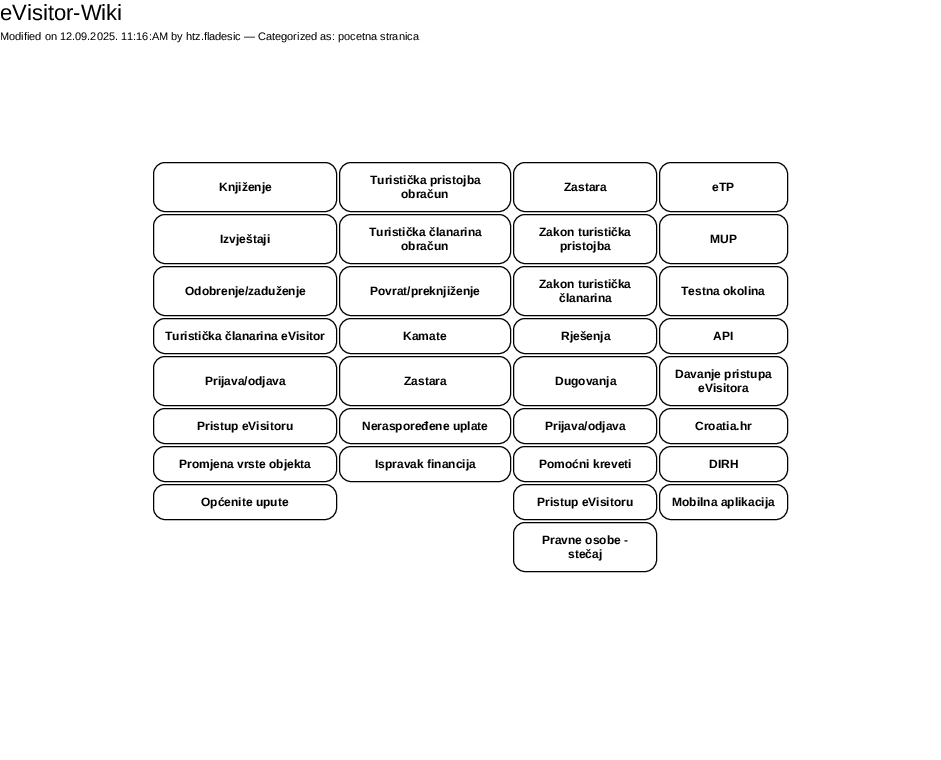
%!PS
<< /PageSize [941 760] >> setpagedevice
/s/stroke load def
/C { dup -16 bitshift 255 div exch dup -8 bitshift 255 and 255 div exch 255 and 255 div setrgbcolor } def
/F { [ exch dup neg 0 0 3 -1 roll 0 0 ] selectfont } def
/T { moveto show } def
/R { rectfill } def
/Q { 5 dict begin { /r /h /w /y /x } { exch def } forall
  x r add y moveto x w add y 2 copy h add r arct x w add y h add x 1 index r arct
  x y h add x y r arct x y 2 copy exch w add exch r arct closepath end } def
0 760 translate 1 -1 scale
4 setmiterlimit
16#FFFFFF C
0 0 941 760 R
/LiberationSans-Regular 22 F
16#000000 C
(eVisitor-Wiki) 0 20 T
/LiberationSans-Regular 11 F
(Modified on 12.09.2025. 11:16:AM by htz.fladesic — Categorized as: pocetna stranica) 0 40 T
153.5 162.5 183 49 11.5 Q s
/LiberationSans-Bold 12 F
(Knjiženje) 219 191 T
339.5 162.5 171 49 11.5 Q s
(Turistička pristojba) 370 184 T
(obračun) 401 198 T
513.5 162.5 143 49 11.5 Q s
(Zastara) 564 191 T
659.5 162.5 128 49 11.5 Q s
(eTP) 712 191 T
153.5 214.5 183 49 11.5 Q s
(Izvještaji) 220 243 T
339.5 214.5 171 49 11.5 Q s
(Turistička članarina) 369 236 T
(obračun) 401 250 T
513.5 214.5 143 49 11.5 Q s
(Zakon turistička) 539 236 T
(pristojba) 560 250 T
659.5 214.5 128 49 11.5 Q s
(MUP) 710 243 T
153.5 266.5 183 49 11.5 Q s
(Odobrenje/zaduženje) 185 295 T
339.5 266.5 171 49 11.5 Q s
(Povrat/preknjiženje) 370 295 T
513.5 266.5 143 49 11.5 Q s
(Zakon turistička) 539 288 T
(članarina) 559 302 T
659.5 266.5 128 49 11.5 Q s
(Testna okolina) 681 295 T
153.5 318.5 183 35 11.5 Q s
(Turistička članarina eVisitor) 165 340 T
339.5 318.5 171 35 11.5 Q s
(Kamate) 403 340 T
513.5 318.5 143 35 11.5 Q s
(Rješenja) 561 340 T
659.5 318.5 128 35 11.5 Q s
(API) 713 340 T
153.5 356.5 183 49 11.5 Q s
(Prijava/odjava) 205 385 T
339.5 356.5 171 49 11.5 Q s
(Zastara) 404 385 T
513.5 356.5 143 49 11.5 Q s
(Dugovanja) 555 385 T
659.5 356.5 128 49 11.5 Q s
(Davanje pristupa) 675 378 T
(eVisitora) 698 392 T
153.5 408.5 183 35 11.5 Q s
(Pristup eVisitoru) 197 430 T
339.5 408.5 171 35 11.5 Q s
(Neraspoređene uplate) 362 430 T
513.5 408.5 143 35 11.5 Q s
(Prijava/odjava) 545 430 T
659.5 408.5 128 35 11.5 Q s
(Croatia.hr) 695 430 T
153.5 446.5 183 35 11.5 Q s
(Promjena vrste objekta) 179 468 T
339.5 446.5 171 35 11.5 Q s
(Ispravak financija) 375 468 T
513.5 446.5 143 35 11.5 Q s
(Pomoćni kreveti) 539 468 T
659.5 446.5 128 35 11.5 Q s
(DIRH) 709 468 T
153.5 484.5 183 35 11.5 Q s
(Općenite upute) 201 506 T
513.5 484.5 143 35 11.5 Q s
(Pristup eVisitoru) 537 506 T
659.5 484.5 128 35 11.5 Q s
(Mobilna aplikacija) 672 506 T
513.5 522.5 143 49 11.5 Q s
(Pravne osobe -) 542 544 T
(stečaj) 568 558 T
showpage
